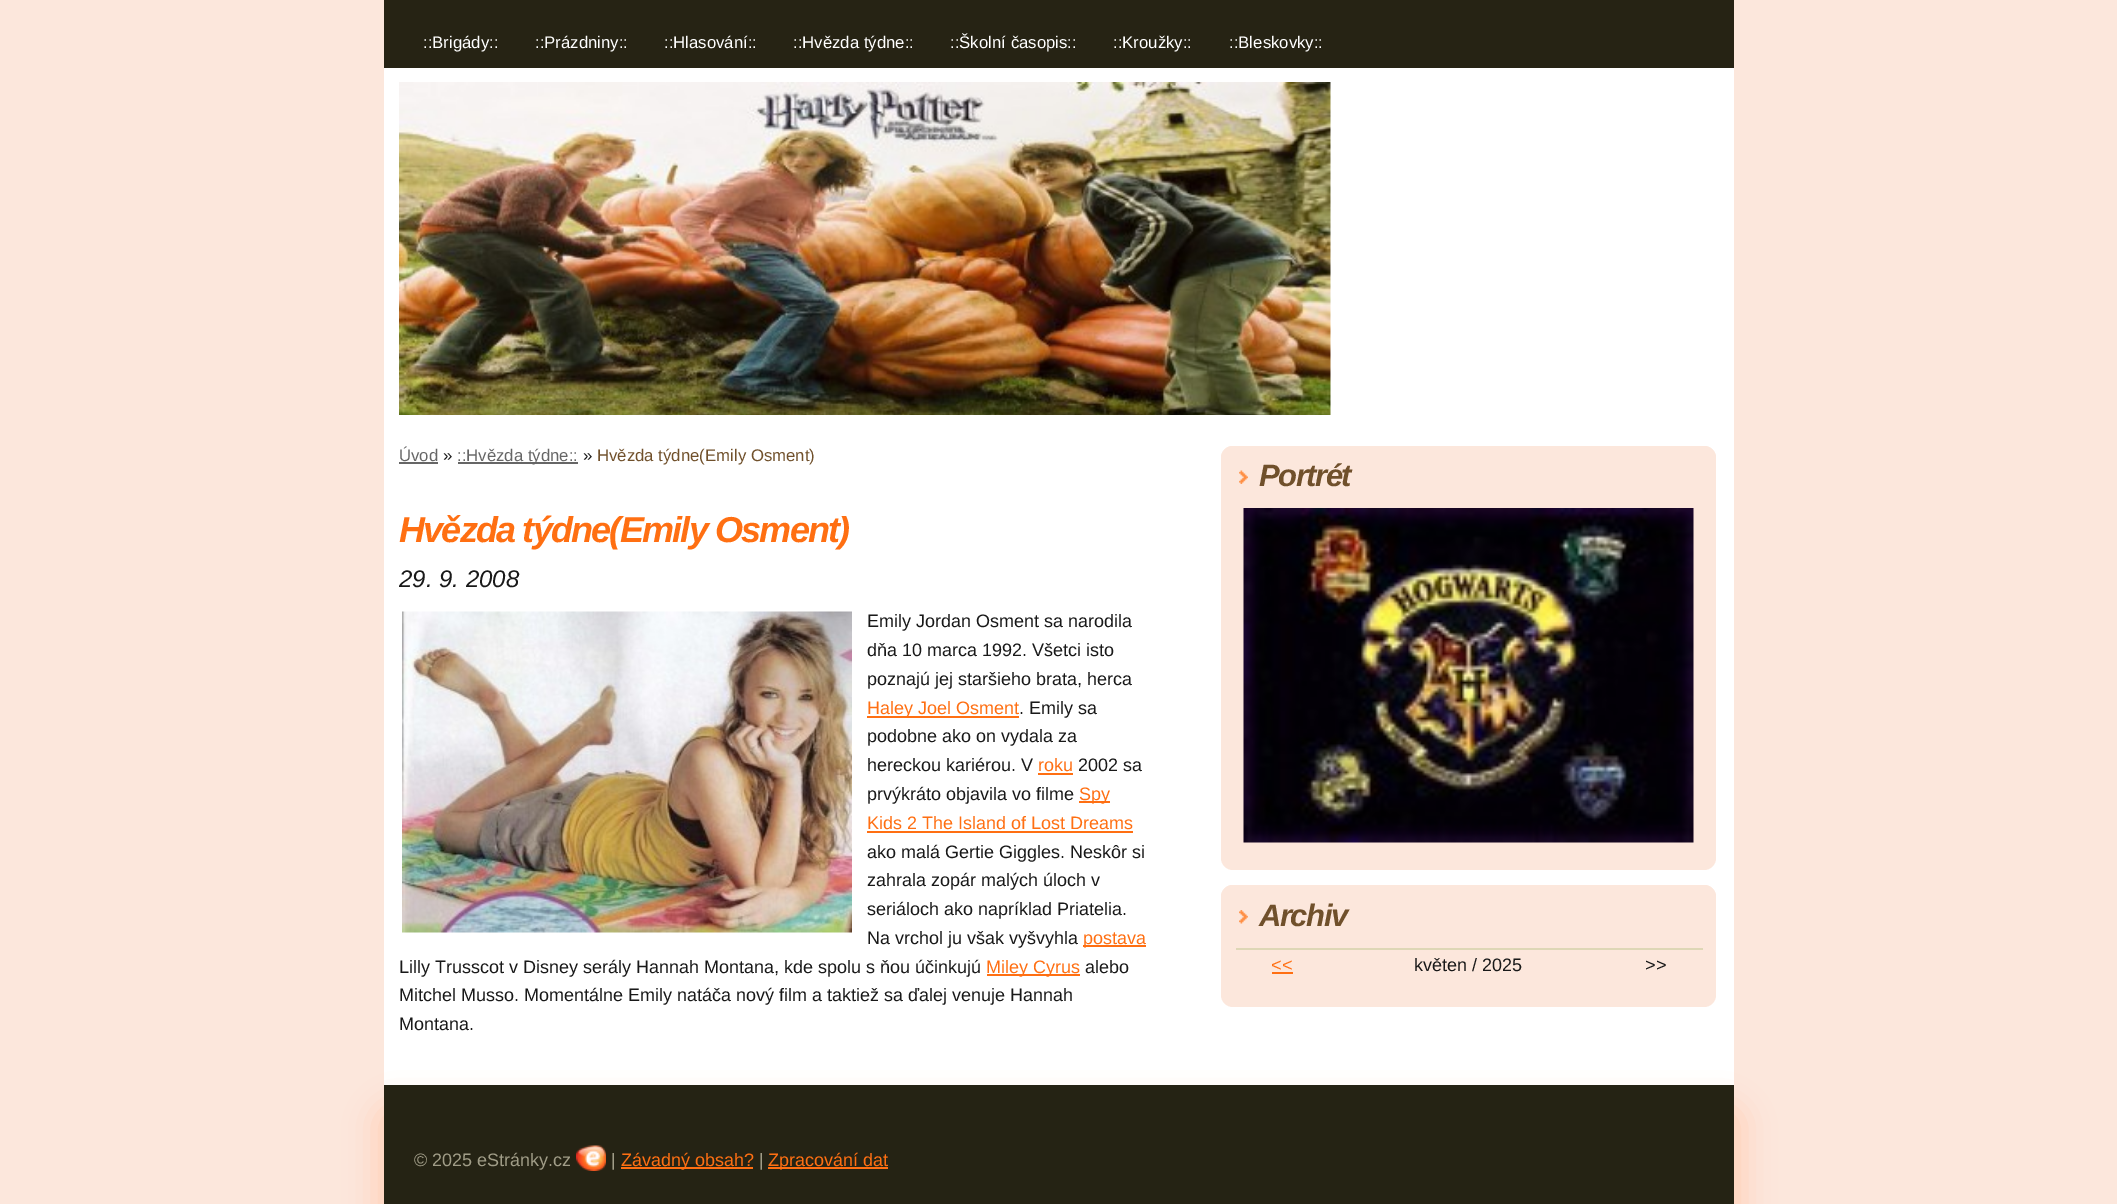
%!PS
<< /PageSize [2117 1204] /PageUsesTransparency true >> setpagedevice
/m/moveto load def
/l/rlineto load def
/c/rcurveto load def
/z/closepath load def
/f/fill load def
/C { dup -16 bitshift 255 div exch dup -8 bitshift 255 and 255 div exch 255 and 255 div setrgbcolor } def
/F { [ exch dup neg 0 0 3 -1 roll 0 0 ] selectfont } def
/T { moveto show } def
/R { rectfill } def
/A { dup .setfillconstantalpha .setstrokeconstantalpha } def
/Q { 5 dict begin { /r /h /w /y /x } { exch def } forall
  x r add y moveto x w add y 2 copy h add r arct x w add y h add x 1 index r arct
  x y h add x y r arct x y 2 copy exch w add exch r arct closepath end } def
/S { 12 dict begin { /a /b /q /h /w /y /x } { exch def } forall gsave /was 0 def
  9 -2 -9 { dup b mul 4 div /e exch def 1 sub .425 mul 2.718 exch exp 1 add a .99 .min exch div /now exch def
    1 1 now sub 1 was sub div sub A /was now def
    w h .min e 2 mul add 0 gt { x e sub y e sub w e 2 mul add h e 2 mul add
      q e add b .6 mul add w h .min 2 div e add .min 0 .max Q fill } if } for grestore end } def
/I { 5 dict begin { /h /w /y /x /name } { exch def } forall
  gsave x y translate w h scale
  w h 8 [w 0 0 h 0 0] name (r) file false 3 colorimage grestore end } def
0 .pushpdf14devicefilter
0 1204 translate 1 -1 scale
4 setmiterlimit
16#FCE7DC C
0 0 2117 1204 R
16#FFFFFF C
384 68 1350 1017 R
16#262314 C
384 0 1350 68 R
/LiberationSans-Regular 16.75 F
16#FFFFFF C
(::Brigády::) 423 48 T
(::Prázdniny::) 535 48 T
(::Hlasování::) 664 48 T
(::Hvězda týdne::) 793 48 T
(::Školní časopis::) 950 48 T
(::Kroužky::) 1113 48 T
(::Bleskovky::) 1229 48 T
(1.rgb) 399 82 932 333 I
16#666666 C
(Úvod) 399 461 T
399 462 39 2 R
16#191919 C
(») 443 461 T
16#666666 C
458 462 120 2 R
(::Hvězda týdne::) 457 461 T
16#191919 C
(») 583 461 T
16#70502B C
(Hvězda týdne\(Emily Osment\)) 597 461 T
/LiberationSans-BoldItalic 36 F
16#FF6F12 C
399 542 m -1.8 0 (Hvězda týdne\(Emily Osment\)) ashow
/LiberationSans-Italic 24 F
16#191919 C
(29. 9. 2008) 399 587 T
(2.rgb) 402 611 450 322 I
/LiberationSans-Regular 18 F
(Emily Jordan Osment sa narodila) 867 627 T
(dňa 10 marca 1992. Všetci isto) 867 656 T
(poznajú jej staršieho brata, herca) 867 685 T
16#FF6F12 C
867 716 152 2 R
(Haley Joel Osment) 867 714 T
16#191919 C
(. Emily sa) 1019 714 T
(podobne ako on vydala za) 867 742 T
(hereckou kariérou. V) 867 771 T
16#FF6F12 C
(roku) 1038 771 T
1038 773 35 2 R
16#191919 C
(2002 sa) 1078 771 T
(prvýkráto objavila vo filme) 867 800 T
16#FF6F12 C
1079 801 31 2 R
(Spy) 1079 800 T
(Kids 2 The Island of Lost Dreams) 867 829 T
867 831 266 2 R
16#191919 C
(ako malá Gertie Giggles. Neskôr si) 867 858 T
(zahrala zopár malých úloch v) 867 886 T
(seriáloch ako napríklad Priatelia.) 867 915 T
(Na vrchol ju však vyšvyhla) 867 944 T
16#FF6F12 C
1083 945 63 2 R
(postava) 1083 944 T
16#191919 C
(Lilly Trusscot v Disney serály Hannah Montana, kde spolu s ňou účinkujú) 399 973 T
16#FF6F12 C
987 974 93 2 R
(Miley Cyrus) 986 973 T
16#191919 C
(alebo) 1085 973 T
(Mitchel Musso. Momentálne Emily natáča nový film a taktiež sa ďalej venuje Hannah) 399 1001 T
(Montana.) 399 1030 T
16#FCE7DC C
1221 446 495 424 12 Q f
1233 446 m 471 0 l 6.5 0 12 5.5 12 12 c 0 36 l -495 0 l 0 -36 l 0 -6.5 5.5 -12 12 -12 c z f
(3.rgb) 1239 470 9 14 I
/LiberationSans-BoldItalic 31 F
16#70502B C
1259 486 m -1.5 0 (Portrét) ashow
(4.rgb) 1243 508 451 335 I
16#FCE7DC C
1221 885 495 122 12 Q f
1233 885 m 471 0 l 6.5 0 12 5.5 12 12 c 0 36 l -495 0 l 0 -36 l 0 -6.5 5.5 -12 12 -12 c z f
(5.rgb) 1239 910 9 14 I
16#70502B C
1259 926 m -1.5 0 (Archiv) ashow
/LiberationSans-Regular 18 F
16#FF6F12 C
(<<) 1271 971 T
1272 972 21 2 R
16#191919 C
(květen / 2025) 1414 971 T
16#DED7B6 C
1236 948 467 2 R
16#191919 C
(>>) 1645 971 T
16#FFD2B9 C
374 1104 1371 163 18 15 1 S
16#252314 C
384 1085 1350 119 R
16#A09C87 C
(© 2025 eStránky.cz) 414 1166 T
(6.rgb) 576 1145 30 26 I
(|) 611 1166 T
16#FF6F12 C
621 1167 132 2 R
(Závadný obsah?) 621 1166 T
16#A09C87 C
(|) 759 1166 T
16#FF6F12 C
768 1167 120 2 R
(Zpracování dat) 768 1166 T
.poppdf14devicefilter showpage
